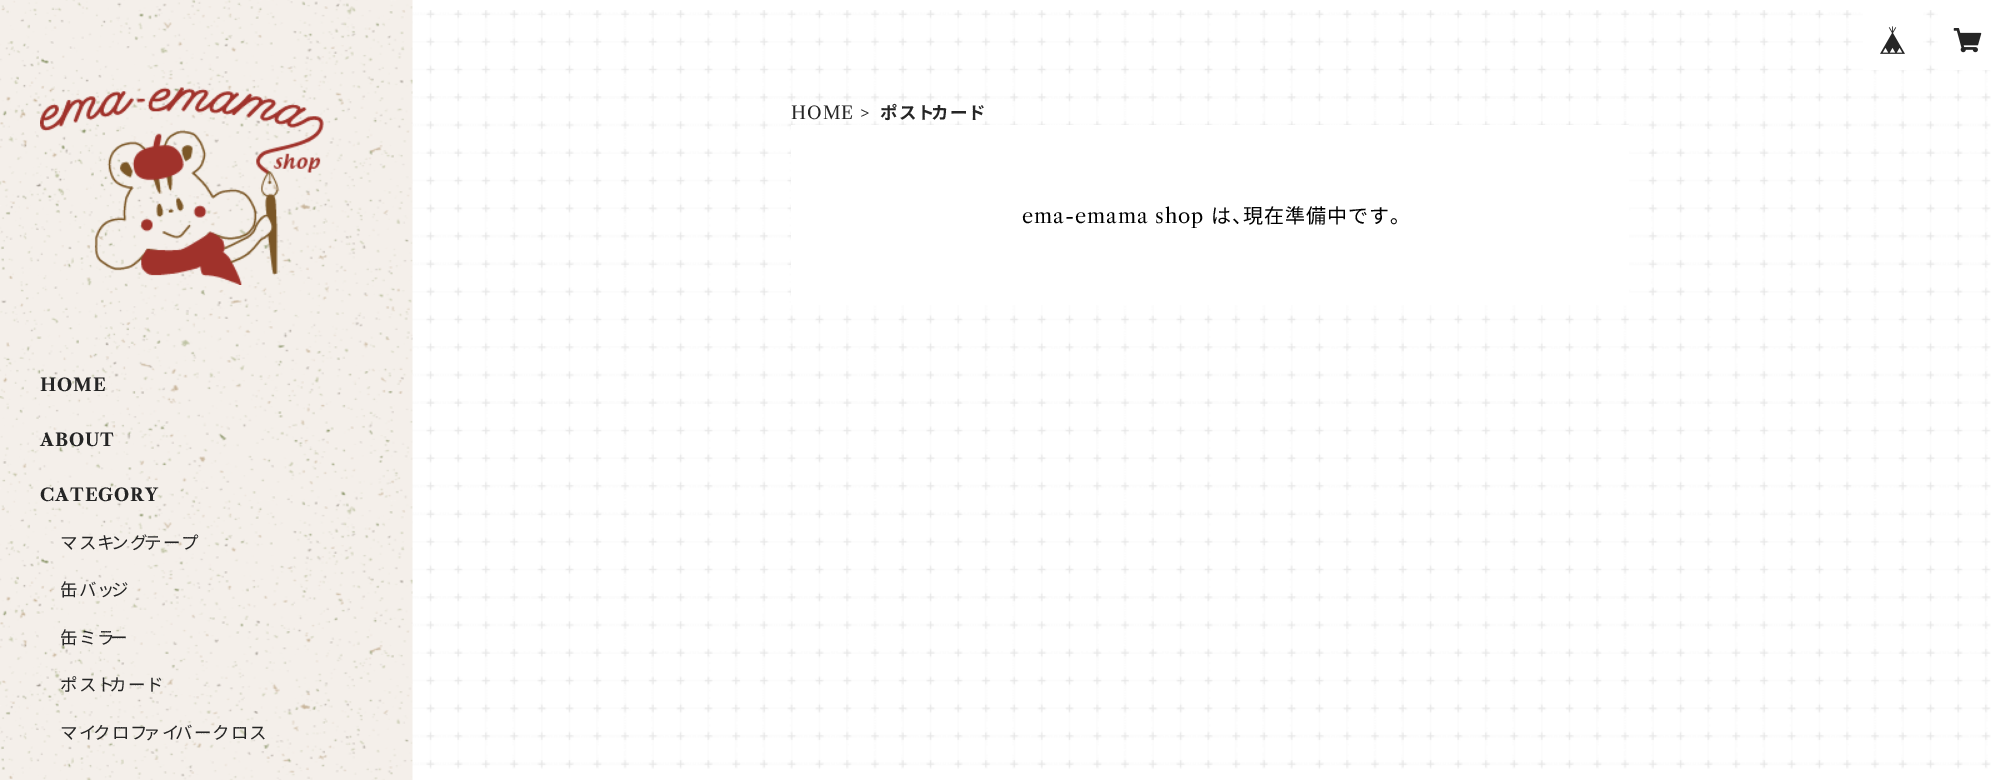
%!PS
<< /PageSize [2007 780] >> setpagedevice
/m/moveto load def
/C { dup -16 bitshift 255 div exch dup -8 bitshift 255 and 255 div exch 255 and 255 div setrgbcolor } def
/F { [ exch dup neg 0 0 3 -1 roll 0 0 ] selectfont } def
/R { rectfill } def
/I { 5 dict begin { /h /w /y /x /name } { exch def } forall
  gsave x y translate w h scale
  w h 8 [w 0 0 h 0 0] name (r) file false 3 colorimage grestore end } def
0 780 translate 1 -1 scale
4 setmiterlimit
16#FFFFFF C
0 0 2007 780 R
(1.rgb) 412 10 1579 759 I
1863 10 60 60 R
(2.rgb) 1880 26 25 28 I
1938 10 53 60 R
(3.rgb) 1953 28 29 25 I
/LibreCaslonText-Regular 17.5 F
16#252525 C
791 119 m 1 0 (HOME) ashow
860 119 m 1 0 (>) ashow
/NotoSansJP-Bold 17.5 F
880 119 m 1 0 (ポスト) ashow
931 119 m 1 0 (カード) ashow
16#FFFFFF C
791 125 838 180 R
/LibreCaslonText-Regular 20 F
16#000000 C
1022 223 m 1 0 (ema-emama shop) ashow
/NotoSansJP-Regular 20 F
1211 223 m 1 0 (は、) ashow
1243 223 m 1 0 (現在準備中です。) ashow
(4.rgb) 0 0 413 780 I
(5.rgb) 40 87 284 198 I
/LibreCaslonText-Bold 17.5 F
16#252525 C
40 391 m 1 0 (HOME) ashow
40 446 m 1 0 (ABOUT) ashow
40 501 m 1 0 (CATEGORY) ashow
/NotoSansJP-Regular 17.5 F
60 549 m 1 0 (マスキ) ashow
111 549 m 1 0 (ング) ashow
144 549 m 1 0 (テープ) ashow
60 596 m 1 0 (缶バッ) ashow
111 596 m 1 0 (ジ) ashow
60 644 m 1 0 (缶ミラ) ashow
110 644 m 1 0 (ー) ashow
60 691 m 1 0 (ポスト) ashow
109 691 m 1 0 (カード) ashow
60 739 m 1 0 (マイ) ashow
93 739 m 1 0 (クロフ) ashow
143 739 m 1 0 (ァイ) ashow
175 739 m 1 0 (バークロス) ashow
showpage
